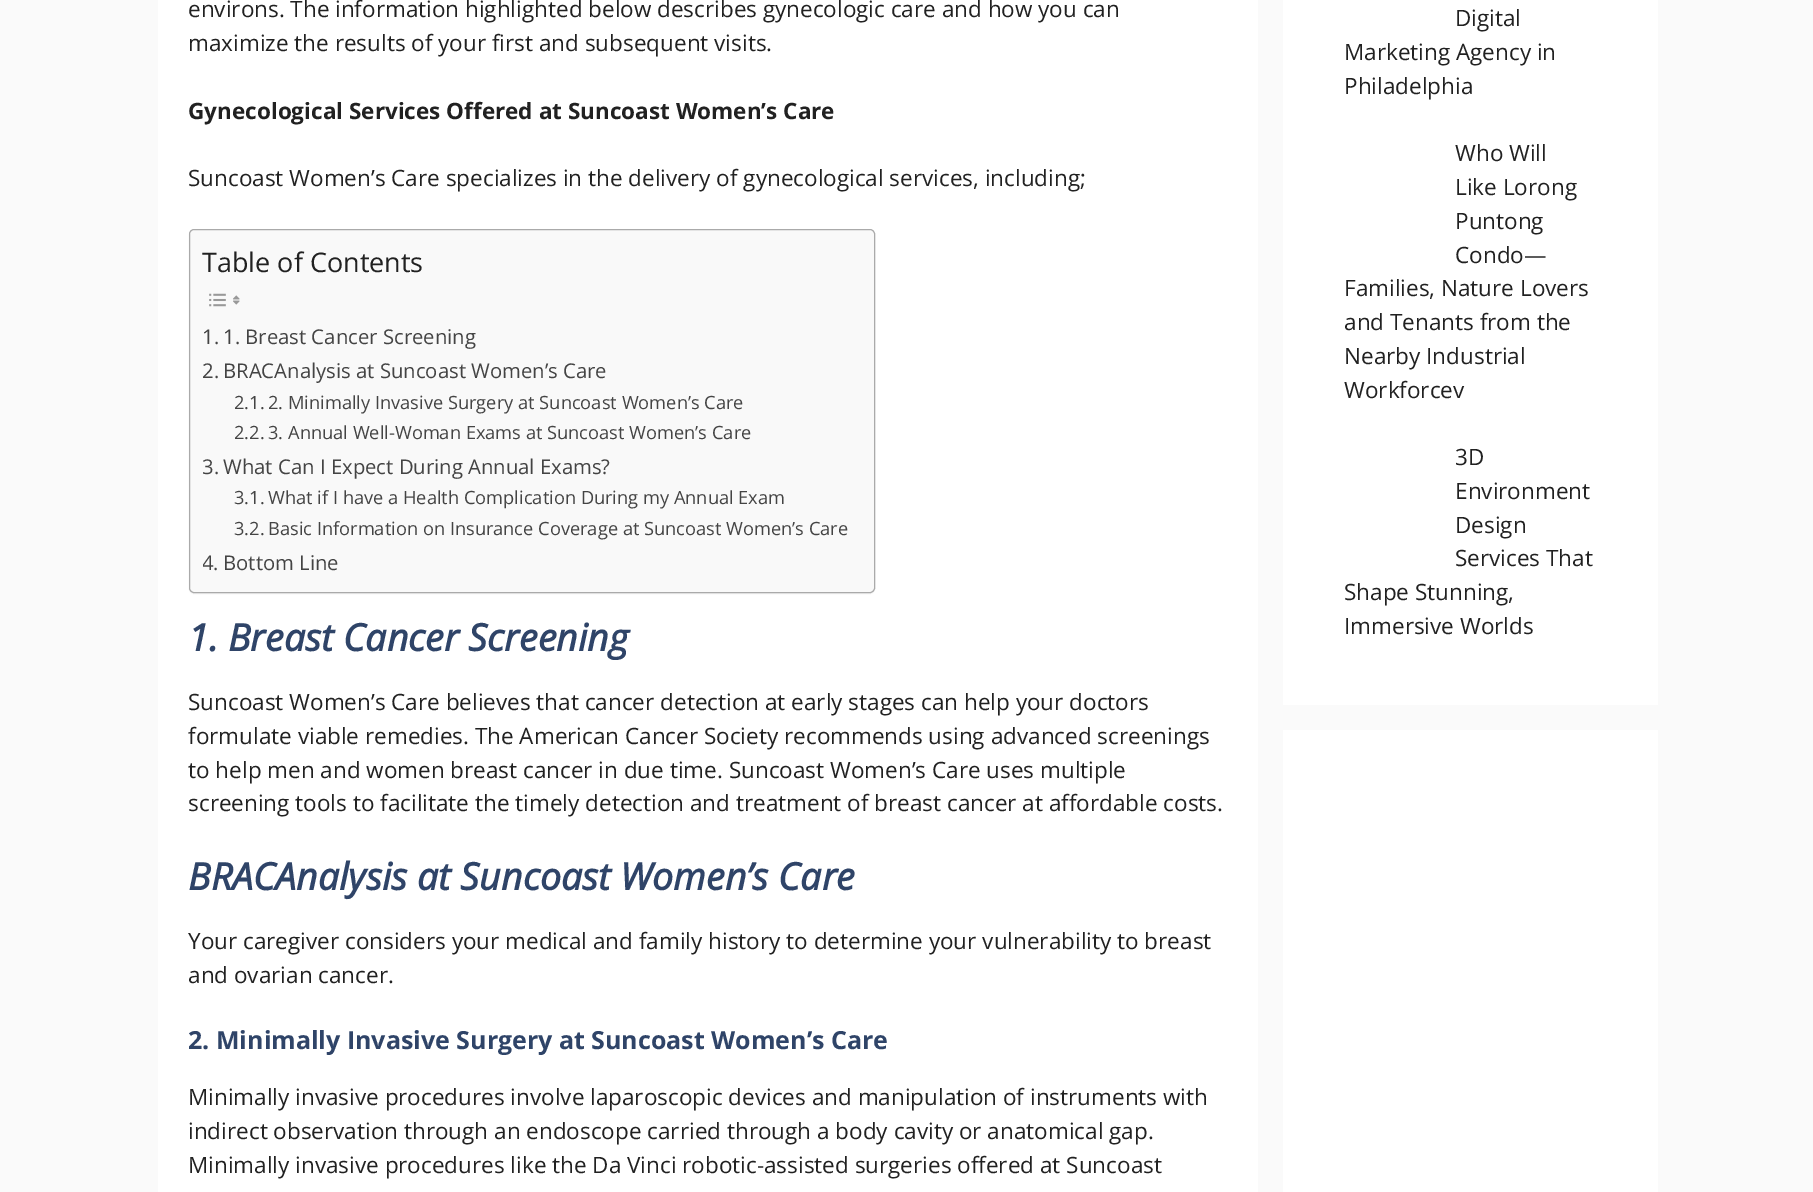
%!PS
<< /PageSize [1813 1192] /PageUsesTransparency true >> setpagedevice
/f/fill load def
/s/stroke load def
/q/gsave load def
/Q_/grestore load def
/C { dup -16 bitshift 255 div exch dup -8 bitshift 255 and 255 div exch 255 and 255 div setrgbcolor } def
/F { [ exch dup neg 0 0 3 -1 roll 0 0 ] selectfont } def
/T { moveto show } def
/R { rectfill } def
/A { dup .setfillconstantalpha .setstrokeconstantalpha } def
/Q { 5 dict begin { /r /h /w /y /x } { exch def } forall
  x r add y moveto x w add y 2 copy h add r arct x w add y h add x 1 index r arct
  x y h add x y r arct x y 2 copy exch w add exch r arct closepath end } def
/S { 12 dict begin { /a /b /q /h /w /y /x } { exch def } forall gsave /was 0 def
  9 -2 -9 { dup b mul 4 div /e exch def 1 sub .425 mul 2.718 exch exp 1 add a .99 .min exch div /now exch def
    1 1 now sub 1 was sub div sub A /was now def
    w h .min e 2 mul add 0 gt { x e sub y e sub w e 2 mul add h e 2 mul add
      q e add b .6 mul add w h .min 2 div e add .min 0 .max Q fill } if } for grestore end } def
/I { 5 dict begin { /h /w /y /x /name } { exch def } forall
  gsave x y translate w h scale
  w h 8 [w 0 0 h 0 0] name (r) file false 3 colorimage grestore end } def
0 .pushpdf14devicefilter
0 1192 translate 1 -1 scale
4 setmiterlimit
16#FAFAFA C
0 0 1813 1192 R
16#FFFFFF C
158 0 1100 1192 R
/OpenSans-Regular 22.5 F
16#212121 C
(environs. The information highlighted below describes gynecologic care and how you can) 188 17 T
(maximize the results of your first and subsequent visits.) 188 51 T
/OpenSans-Bold 22.5 F
(Gynecological Services Offered at Suncoast Women’s Care) 188 119 T
/OpenSans-Regular 22.5 F
(Suncoast Women’s Care specializes in the delivery of gynecological services, including;) 188 186 T
16#000000 C
189 230 686 364 5 .5 .05 S
16#F9F9F9 C
189.5 229.5 685 363 4.5 Q q f Q_
16#AAAAAA C
s
/OpenSans-Regular 27 F
16#212121 C
(Table of Contents) 202 272 T
(1.rgb) 209 293 17 14 I
(2.rgb) 233 295 7 10 I
/OpenSans-Regular 20.3 F
16#444444 C
(1.) 202 344 T
(1. Breast Cancer Screening) 223 344 T
(2.) 202 378 T
(BRACAnalysis at Suncoast Women’s Care) 223 378 T
/OpenSans-Regular 18.25 F
(2.1.) 234 409 T
(2. Minimally Invasive Surgery at Suncoast Women’s Care) 268 409 T
(2.2.) 234 439 T
(3. Annual Well-Woman Exams at Suncoast Women’s Care) 268 439 T
/OpenSans-Regular 20.3 F
(3.) 202 474 T
(What Can I Expect During Annual Exams?) 223 474 T
/OpenSans-Regular 18.25 F
(3.1.) 234 504 T
(What if I have a Health Complication During my Annual Exam) 268 504 T
(3.2.) 234 535 T
(Basic Information on Insurance Coverage at Suncoast Women’s Care) 268 535 T
q
203 545 646 34 rectclip
/OpenSans-Regular 20.3 F
(4) 202 570 T
Q_
/OpenSans-Regular 20.3 F
(.) 213 570 T
(Bottom Line) 223 570 T
/OpenSans-BoldItalic 37.5 F
16#2F4468 C
(1. Breast Cancer Screening) 188 651 T
/OpenSans-Regular 22.5 F
16#212121 C
(Suncoast Women’s Care believes that cancer detection at early stages can help your doctors) 188 710 T
(formulate viable remedies. The American Cancer Society recommends using advanced screenings) 188 744 T
(to help men and women breast cancer in due time. Suncoast Women’s Care uses multiple) 188 778 T
(screening tools to facilitate the timely detection and treatment of breast cancer at affordable costs.) 188 811 T
/OpenSans-BoldItalic 37.5 F
16#2F4468 C
(BRACAnalysis at Suncoast Women’s Care) 188 890 T
/OpenSans-Regular 22.5 F
16#212121 C
(Your caregiver considers your medical and family history to determine your vulnerability to breast) 188 949 T
(and ovarian cancer.) 188 983 T
/OpenSans-Bold 25 F
16#2F4468 C
(2. Minimally Invasive Surgery at Suncoast Women’s Care) 188 1049 T
/OpenSans-Regular 22.5 F
16#212121 C
(Minimally invasive procedures involve laparoscopic devices and manipulation of instruments with) 188 1105 T
(indirect observation through an endoscope carried through a body cavity or anatomical gap.) 188 1139 T
(Minimally invasive procedures like the Da Vinci robotic-assisted surgeries offered at Suncoast) 188 1173 T
16#FFFFFF C
1283 0 375 705 R
16#212121 C
(Digital) 1455 26 T
(Marketing Agency in) 1344 60 T
(Philadelphia) 1344 94 T
(Who Will) 1455 161 T
(Like Lorong) 1455 195 T
(Puntong) 1455 229 T
(Condo—) 1455 263 T
(Families, Nature Lovers) 1344 296 T
(and Tenants from the) 1344 330 T
(Nearby Industrial) 1344 364 T
(Workforcev) 1344 398 T
(3D) 1455 465 T
(Environment) 1455 499 T
(Design) 1455 533 T
(Services That) 1455 566 T
(Shape Stunning,) 1344 600 T
(Immersive Worlds) 1344 634 T
16#FFFFFF C
1283 730 375 462 R
.poppdf14devicefilter showpage
